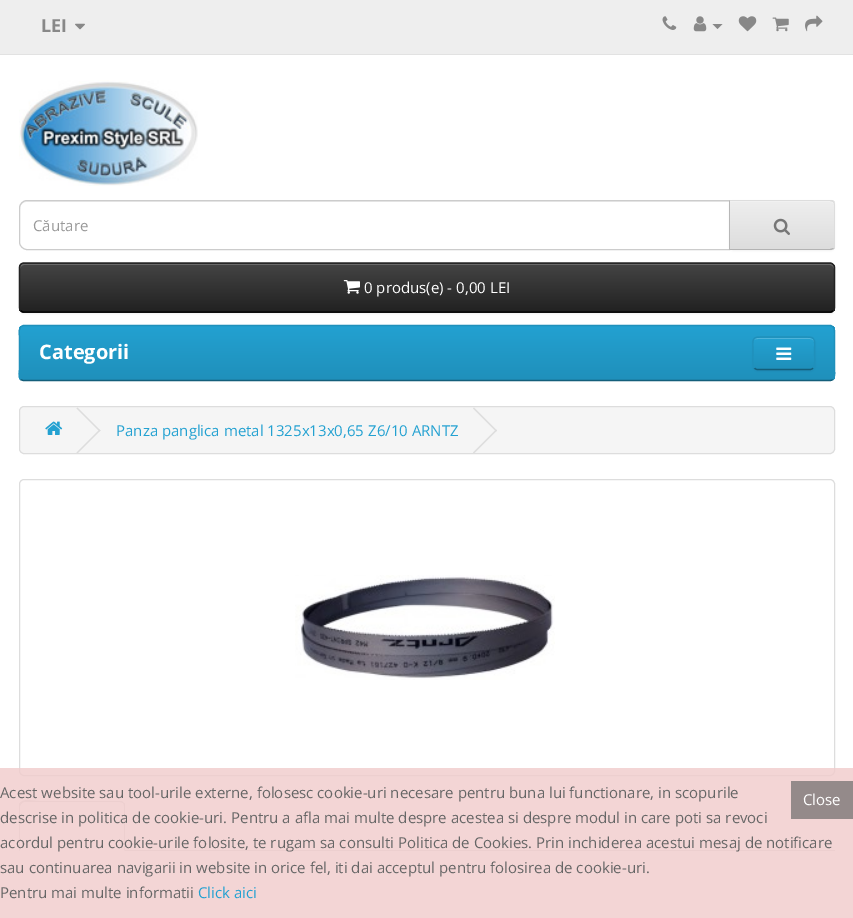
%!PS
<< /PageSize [853 918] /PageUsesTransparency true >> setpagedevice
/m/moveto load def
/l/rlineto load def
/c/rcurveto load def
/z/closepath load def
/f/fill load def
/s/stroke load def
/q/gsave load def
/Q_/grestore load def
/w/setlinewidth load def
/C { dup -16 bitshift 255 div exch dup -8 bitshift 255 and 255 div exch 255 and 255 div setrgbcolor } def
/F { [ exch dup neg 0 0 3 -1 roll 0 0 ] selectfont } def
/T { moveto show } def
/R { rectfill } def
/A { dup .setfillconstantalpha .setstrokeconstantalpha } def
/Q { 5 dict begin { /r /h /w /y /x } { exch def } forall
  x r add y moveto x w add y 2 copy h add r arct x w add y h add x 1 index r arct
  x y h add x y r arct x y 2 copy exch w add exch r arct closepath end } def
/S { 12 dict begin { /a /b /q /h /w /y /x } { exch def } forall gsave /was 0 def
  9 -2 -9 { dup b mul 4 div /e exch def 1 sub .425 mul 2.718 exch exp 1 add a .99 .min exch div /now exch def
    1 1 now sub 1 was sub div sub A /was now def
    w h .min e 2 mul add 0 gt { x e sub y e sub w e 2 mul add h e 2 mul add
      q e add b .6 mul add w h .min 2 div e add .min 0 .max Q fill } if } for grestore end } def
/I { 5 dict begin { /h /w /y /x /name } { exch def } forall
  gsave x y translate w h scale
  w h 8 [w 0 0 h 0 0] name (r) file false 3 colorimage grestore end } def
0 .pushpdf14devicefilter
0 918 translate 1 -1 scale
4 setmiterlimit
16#FFFFFF C
0 0 853 918 R
16#EEEEEE C
0 0 853 54 R
16#E2E2E2 C
0 54 853 1 R
/OpenSans-Bold 18 F
16#888888 C
(LEI) 41 32 T
(1.rgb) 75 23 10 7 I
(2.rgb) 662 16 15 14 I
(3.rgb) 693 16 14 16 I
712.5 24 m 10 0 l -5 5 l z f
(4.rgb) 738 16 19 16 I
(5.rgb) 772 17 17 15 I
(6.rgb) 805 15 18 17 I
(7.rgb) 19 80 179 106 I
16#ECECEC C
26 202 m 703 0 l 0 -1 l -703 0 l -3 0 -6 3 -6 6 c 0 2 l 0 -4 3 -7 6 -7 c z f
16#CCCCCC C
27 200.5 m 702.5 0 l 0 49 l -702.5 0 l -4 0 -7.5 -3.5 -7.5 -7.5 c 0 -34 l 0 -4 3.5 -7.5 7.5 -7.5 c z s
/OpenSans-Regular 15 F
16#999999 C
(Căutare) 33 231 T
16#000000 C
729 201 106 50 5 1 .05 S
q
729 200 m 101 0 l 3 0 5 2 5 5 c 0 40 l 0 3 -2 5 -5 5 c -101 0 l z clip newpath
q 730 201 m 105 0 l 0 48 l -105 0 l z clip newpath
<< /ShadingType 2 /ColorSpace /DeviceRGB /Coords [782 201 782 249] /Extend [true true] /Function << /FunctionType 2 /Domain [0 1] /C0 [.933 .933 .933] /C1 [.867 .867 .867] /N 1 >> >> shfill Q_
Q_
16#F1F1F1 C
730 202 m 100 0 l 2 0 4 2 4 4 c 0 -1 l 0 -2 -2 -4 -4 -4 c -100 0 l z f
16#DDDDDD C
729 200 m 1 1 l 100 0 l 3 1 l 1 -1 l -1 -1 -2 -1 -4 -1 c z f
835 245 m 0 -40 l 0 -1 -1 -3 -1 -4 c -1 1 l 1 1 1 2 1 3 c 0 40 l 0 1 0 2 -1 3 c 1 1 l 0 -1 1 -3 1 -4 c z f
16#B3B3B3 C
729 250 m 102 0 l 3 -1 l -1 -1 l -3 1 l -100 0 l z f
16#B7B7B7 C
729 200 m 0 50 l 1 -1 l 0 -48 l z f
(8.rgb) 773 218 17 17 I
16#000000 C
19 264 816 50 5 1 .05 S
16#363636 C
19 263 816 50 5 Q f
q
19 263 816 50 5 Q clip newpath
q 19 264 m 816 0 l 0 47 l -816 0 l z clip newpath
<< /ShadingType 2 /ColorSpace /DeviceRGB /Coords [427 264 427 311] /Extend [true true] /Function << /FunctionType 2 /Domain [0 1] /C0 [.267 .267 .267] /C1 [.133 .133 .133] /N 1 >> >> shfill Q_
Q_
16#696969 C
24 265 m 806 0 l 2 0 4 2 4 4 c 0 -3 -1 -5 -4 -5 c -806 0 l -3 0 -4 2 -4 5 c 0 -2 2 -4 4 -4 c z f
16#000000 C
1.2 w
833 310.5 m -.5 1 -2 1.5 -3 1.5 c -806 0 l -1.5 0 -2.5 -.5 -3.5 -1.5 c s
16#222222 C
20.5 310.5 m -.5 -.5 -1 -2 -1 -3 c 0 -40 l 0 -1 .5 -2.5 1 -3 c 1 -1 2 -1.5 3.5 -1.5 c 806 0 l 1 0 2.5 .5 3 1.5 c 1 .5 1.5 2 1.5 3 c 0 40 l 0 1 -.5 2.5 -1.5 3 c s
(9.rgb) 343 280 17 14 I
16#FFFFFF C
(0 produs\(e\) - 0,00 LEI) 364 293 T
q
19 325 816 56 5 Q clip newpath
q 19 326 m 816 0 l 0 54 l -816 0 l z clip newpath
<< /ShadingType 2 /ColorSpace /DeviceRGB /Coords [427 326 427 380] /Extend [true true] /Function << /FunctionType 2 /Domain [0 1] /C0 [.137 .631 .82] /C1 [.122 .565 .733] /N 1 >> >> shfill Q_
Q_
16#145E7A C
833 379.5 m -.5 .5 -2 1 -3 1 c -806 0 l -1.5 0 -2.5 -.5 -3.5 -1 c s
16#1F90BB C
20.5 379.5 m -2.5 -2.5 -1 -9 -1 -11 c 0 -31 l 0 -3 -2 -12 4.5 -12 c 806 0 l 6 0 4.5 9 4.5 12 c 0 31 l 0 2 1 8.5 -1.5 11 c s
/OpenSans-Bold 20 F
16#FFFFFF C
(Categorii) 39 359 T
16#000000 C
753 338 62 33 5 1 .05 S
16#229AC8 C
753 336 62 34 5 Q f
q
753 336 62 34 5 Q clip newpath
q 753 338 m 62 0 l 0 31 l -62 0 l z clip newpath
<< /ShadingType 2 /ColorSpace /DeviceRGB /Coords [784 338 784 369] /Extend [true true] /Function << /FunctionType 2 /Domain [0 1] /C0 [.137 .631 .82] /C1 [.122 .565 .733] /N 1 >> >> shfill Q_
Q_
16#4FB4DA C
758 339 m 52 0 l 2 0 4 1 4 3 c 0 -2 -2 -4 -4 -4 c -52 0 l -2 0 -3 1 -4 2 c 1 -1 2 -1 4 -1 c z f
16#145E7A C
813 368 m -.5 1 -2 1.5 -3 1.5 c -52.5 0 l -1 0 -2.5 -.5 -3 -1.5 c s
16#1F90BB C
754.5 368 m -2.5 -2.5 -1.5 -11.5 -1.5 -15 c 0 -16 -2.5 -16 13 -16 c 35 0 l 16 0 13.5 0 13.5 16 c 0 3.5 1 12.5 -1.5 15 c s
(10.rgb) 776 347 16 13 I
16#F5F5F5 C
19.5 406.5 815 47 4.5 Q q f Q_
16#DDDDDD C
1 w
s
(11.rgb) 45 421 18 14 I
76.5 408.5 m 1 -1 l 23 23 l -1 1 l z f
76.5 452.5 m 23 -23 l 1 1 l -23 23 l z f
/OpenSans-Regular 15 F
16#23A1D1 C
(Panza panglica metal 1325x13x0,65 Z6/10 ARNTZ) 116 436 T
16#DDDDDD C
473 408.5 m 1 -1 l 23 23 l -1 1 l z f
473 452.5 m 23 -23 l 1 1 l -23 23 l z f
19.5 479.5 815 296 4.5 Q s
(12.rgb) 295 575 260 105 I
125 850 710 1 R
24 802 m -1 0 -2 1 -3 2 c -1 -1 l 4 -5 12 -2 19 -2 c 83 0 l 2 2 l -1 0 l -3 -1 l z f
125 851 m 0 -45 l 0 -1 0 -3 -1 -3 c -1 0 l 1 1 1 2 1 3 c 0 44 l z f
19 851 m 1 -1 l 0 -44 l 1 -2 l -1 -1 l -1 0 -1 2 -1 3 c z f
0.82 A
16#F0CCCC C
0 768 853 150 R
1 A
16#666666 C
(Acest website sau tool-urile externe, folosesc cookie-uri necesare pentru buna lui functionare, in scopurile) 0 798 T
16#948A8A C
791 781 62 38 R
16#FFFFFF C
(Close) 803 805 T
16#666666 C
(descrise in politica de cookie-uri. Pentru a afla mai multe despre acestea si despre modul in care poti sa revoci) 0 823 T
(acordul pentru cookie-urile folosite, te rugam sa consulti Politica de Cookies. Prin inchiderea acestui mesaj de notificare) 0 848 T
(sau continuarea navigarii in website in orice fel, iti dai acceptul pentru folosirea de cookie-uri.) 0 873 T
(Pentru mai multe informatii) 0 898 T
16#23A1D1 C
(Click aici) 198 898 T
.poppdf14devicefilter showpage
